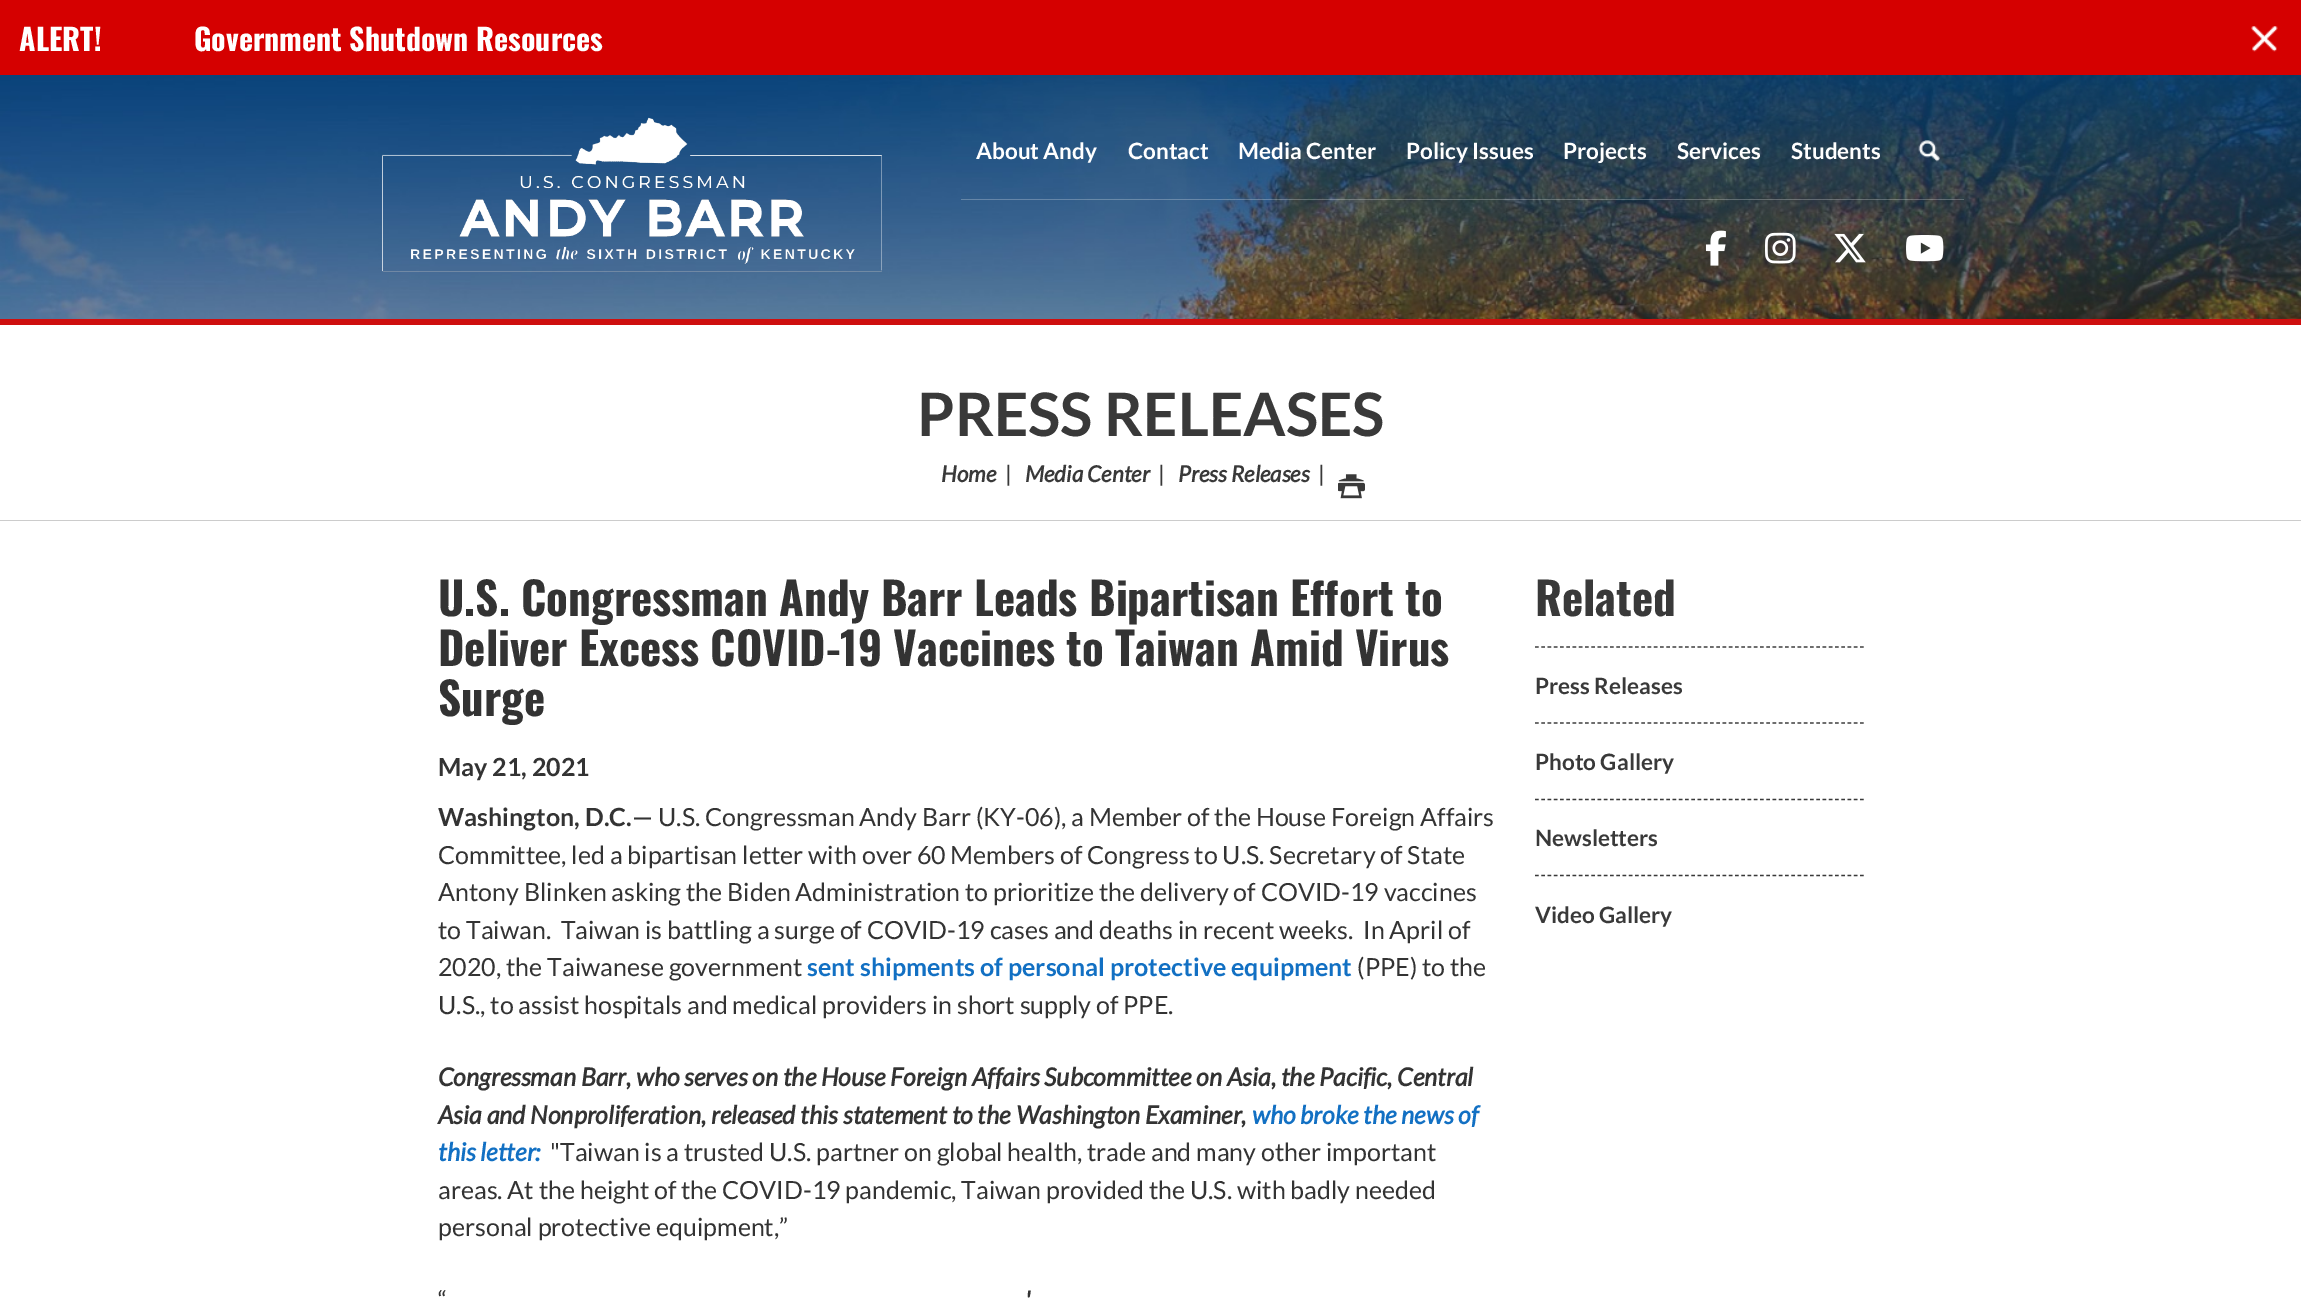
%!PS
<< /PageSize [2301 1300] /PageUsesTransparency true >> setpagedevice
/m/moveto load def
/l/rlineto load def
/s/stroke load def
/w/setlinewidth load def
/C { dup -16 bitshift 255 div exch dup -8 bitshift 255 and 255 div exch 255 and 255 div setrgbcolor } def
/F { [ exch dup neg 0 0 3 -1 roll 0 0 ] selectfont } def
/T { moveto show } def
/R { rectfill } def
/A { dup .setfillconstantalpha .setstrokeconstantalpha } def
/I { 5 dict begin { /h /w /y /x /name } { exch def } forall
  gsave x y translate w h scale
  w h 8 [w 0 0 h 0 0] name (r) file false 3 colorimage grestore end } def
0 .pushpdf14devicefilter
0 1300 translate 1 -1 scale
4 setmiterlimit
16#D50000 C
0 0 2301 1300 R
/Oswald-Bold 30 F
16#FFFFFF C
(ALERT!) 19 51 T
(Government Shutdown Resources) 194 51 T
(1.rgb) 2251 26 27 26 I
(2.rgb) 0 75 2301 244 I
16#CE0F0F C
0 319 2301 6 R
(3.rgb) 382 117 500 155 I
0.25 A
16#FFFFFF C
961 199 1003 1 R
/Lato-Bold 22.5 F
1 A
(About Andy) 976 159 T
(Contact) 1128 159 T
(Media Center) 1238 159 T
(Policy Issues) 1406 159 T
(Projects) 1563 159 T
(Services) 1677 159 T
(Students) 1791 159 T
(4.rgb) 1918 140 22 22 I
(5.rgb) 1705 230 21 36 I
(6.rgb) 1765 232 31 32 I
(7.rgb) 1834 233 32 30 I
(8.rgb) 1906 235 38 27 I
0 325 2301 975 R
16#CCCCCC C
0 520 2301 1 R
/Lato-Bold 60 F
16#393939 C
(PRESS RELEASES) 917 436 T
/Lato-BoldItalic 22.5 F
(Home) 941 482 T
/Lato-Regular 22.5 F
(|) 1005 482 T
/Lato-BoldItalic 22.5 F
(Media Center) 1025 482 T
/Lato-Regular 22.5 F
(|) 1158 482 T
/Lato-BoldItalic 22.5 F
(Press Releases) 1178 482 T
/Lato-Regular 22.5 F
(|) 1318 482 T
(9.rgb) 1338 474 27 25 I
/Oswald-Bold 45 F
16#333333 C
(U.S. Congressman Andy Barr Leads Bipartisan Effort to) 438 616 T
(Deliver Excess COVID-19 Vaccines to Taiwan Amid Virus) 438 666 T
(Surge) 438 716 T
/Lato-Bold 25 F
(May 21, 2021) 438 776 T
(Washington, D.C.—) 438 826 T
/Lato-Regular 25 F
(U.S. Congressman Andy Barr \(KY-06\), a Member of the House Foreign Affairs) 658 826 T
(Committee, led a bipartisan letter with over 60 Members of Congress to U.S. Secretary of State) 438 864 T
(Antony Blinken asking the Biden Administration to prioritize the delivery of COVID-19 vaccines) 438 901 T
(to Taiwan.  Taiwan is battling a surge of COVID-19 cases and deaths in recent weeks.  In April of) 438 939 T
(2020, the Taiwanese government) 438 976 T
/Lato-Bold 25 F
16#1270C3 C
(sent shipments of personal protective equipment) 807 976 T
/Lato-Regular 25 F
16#333333 C
(\(PPE\) to the) 1357 976 T
(U.S., to assist hospitals and medical providers in short supply of PPE.) 438 1014 T
/Lato-BoldItalic 25 F
(Congressman Barr, who serves on the House Foreign Affairs Subcommittee on Asia, the Pacific, Central) 438 1086 T
(Asia and Nonproliferation, released this statement to the Washington Examiner,) 438 1124 T
16#1270C3 C
(who broke the news of) 1252 1124 T
(this letter:) 438 1161 T
/Lato-Regular 25 F
16#333333 C
("Taiwan is a trusted U.S. partner on global health, trade and many other important) 550 1161 T
(areas. At the height of the COVID-19 pandemic, Taiwan provided the U.S. with badly needed) 438 1199 T
(personal protective equipment,”) 438 1236 T
(“) 438 1309 T
/Lato-BoldItalic 25 F
(') 1025 1309 T
16#393939 C
1.2 w
[3.75 2.5] 0 setdash
1535 647 m 329 0 l s
/Oswald-Bold 45 F
(Related) 1535 616 T
1535 723 m 329 0 l s
/Lato-Bold 22.5 F
(Press Releases) 1535 694 T
1535 799.5 m 329 0 l s
(Photo Gallery) 1535 770 T
1535 875.5 m 329 0 l s
(Newsletters) 1535 846 T
(Video Gallery) 1535 923 T
.poppdf14devicefilter showpage
